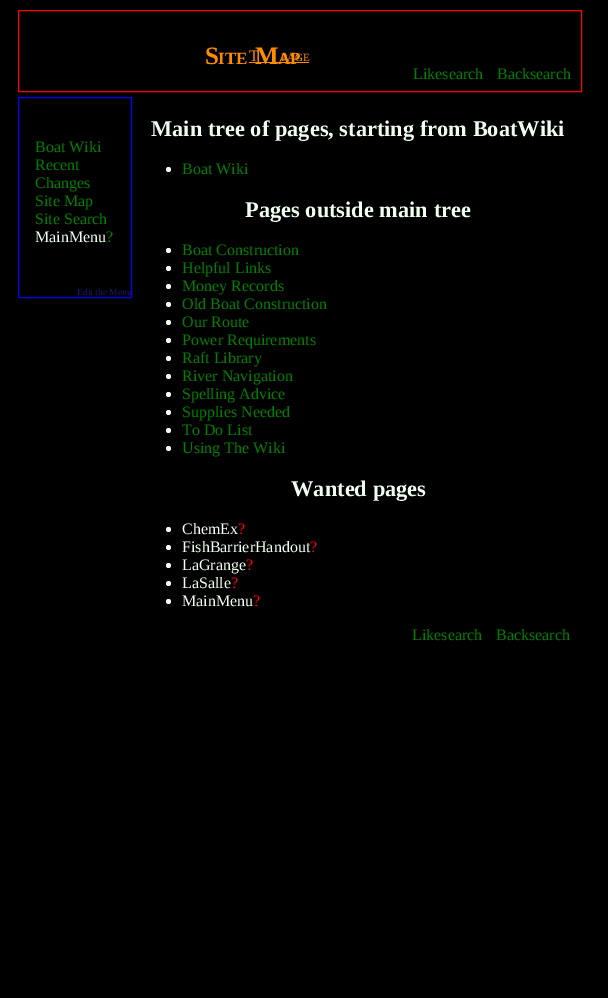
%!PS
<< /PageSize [608 998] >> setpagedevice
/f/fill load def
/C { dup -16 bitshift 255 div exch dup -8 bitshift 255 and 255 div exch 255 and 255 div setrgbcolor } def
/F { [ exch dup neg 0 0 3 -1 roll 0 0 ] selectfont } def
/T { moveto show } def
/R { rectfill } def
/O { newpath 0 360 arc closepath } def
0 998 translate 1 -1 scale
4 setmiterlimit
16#000000 C
0 0 608 998 R
16#FF0000 C
18.5 10.5 563 81 rectstroke
/LiberationSerif-Bold 25 F
16#FF8C00 C
(S) 205 64 T
/LiberationSerif-Bold 17 F
(ITE) 218 64 T
/LiberationSerif-Bold 25 F
(M) 255 64 T
/LiberationSerif-Bold 17 F
(AP) 278 64 T
/LiberationSerif-Regular 16 F
(T) 249 61 T
/LiberationSerif-Regular 11 F
(PAGE) 281 61 T
249 62 60 1 R
/LiberationSerif-Regular 16 F
16#008000 C
(Likesearch) 413 79 T
(Backsearch) 497 79 T
16#0000FF C
18.5 97.5 113 200 rectstroke
16#008000 C
(Boat Wiki) 35 152 T
(Recent) 35 170 T
(Changes) 35 188 T
(Site Map) 35 206 T
(Site Search) 35 224 T
16#F0FFF0 C
(MainMenu) 35 242 T
16#008000 C
(?) 106 242 T
/LiberationSerif-Regular 9.5 F
16#191970 C
(Edit the Menu) 77 295 T
/LiberationSerif-Bold 22.4 F
16#F0FFF0 C
(Main tree of pages, starting from BoatWiki) 151 136 T
168.5 169.5 2.5 O f
/LiberationSerif-Regular 16 F
16#008000 C
(Boat Wiki) 182 174 T
/LiberationSerif-Bold 22.4 F
16#F0FFF0 C
(Pages outside main tree) 245 217 T
168.5 250.5 2.5 O f
/LiberationSerif-Regular 16 F
16#008000 C
(Boat Construction) 182 255 T
16#F0FFF0 C
168.5 268.5 2.5 O f
16#008000 C
(Helpful Links) 182 273 T
16#F0FFF0 C
168.5 286.5 2.5 O f
16#008000 C
(Money Records) 182 291 T
16#F0FFF0 C
168.5 304.5 2.5 O f
16#008000 C
(Old Boat Construction) 182 309 T
16#F0FFF0 C
168.5 322.5 2.5 O f
16#008000 C
(Our Route) 182 327 T
16#F0FFF0 C
168.5 340.5 2.5 O f
16#008000 C
(Power Requirements) 182 345 T
16#F0FFF0 C
168.5 358.5 2.5 O f
16#008000 C
(Raft Library) 182 363 T
16#F0FFF0 C
168.5 376.5 2.5 O f
16#008000 C
(River Navigation) 182 381 T
16#F0FFF0 C
168.5 394.5 2.5 O f
16#008000 C
(Spelling Advice) 182 399 T
16#F0FFF0 C
168.5 412.5 2.5 O f
16#008000 C
(Supplies Needed) 182 417 T
16#F0FFF0 C
168.5 430.5 2.5 O f
16#008000 C
(To Do List) 182 435 T
16#F0FFF0 C
168.5 448.5 2.5 O f
16#008000 C
(Using The Wiki) 182 453 T
/LiberationSerif-Bold 22.4 F
16#F0FFF0 C
(Wanted pages) 291 496 T
168.5 529.5 2.5 O f
/LiberationSerif-Regular 16 F
(ChemEx) 182 534 T
16#FF0000 C
(?) 238 534 T
16#F0FFF0 C
168.5 547.5 2.5 O f
(FishBarrierHandout) 182 552 T
16#FF0000 C
(?) 310 552 T
16#F0FFF0 C
168.5 565.5 2.5 O f
(LaGrange) 182 570 T
16#FF0000 C
(?) 246 570 T
16#F0FFF0 C
168.5 583.5 2.5 O f
(LaSalle) 182 588 T
16#FF0000 C
(?) 231 588 T
16#F0FFF0 C
168.5 601.5 2.5 O f
(MainMenu) 182 606 T
16#FF0000 C
(?) 253 606 T
16#008000 C
(Likesearch) 412 640 T
(Backsearch) 496 640 T
showpage
